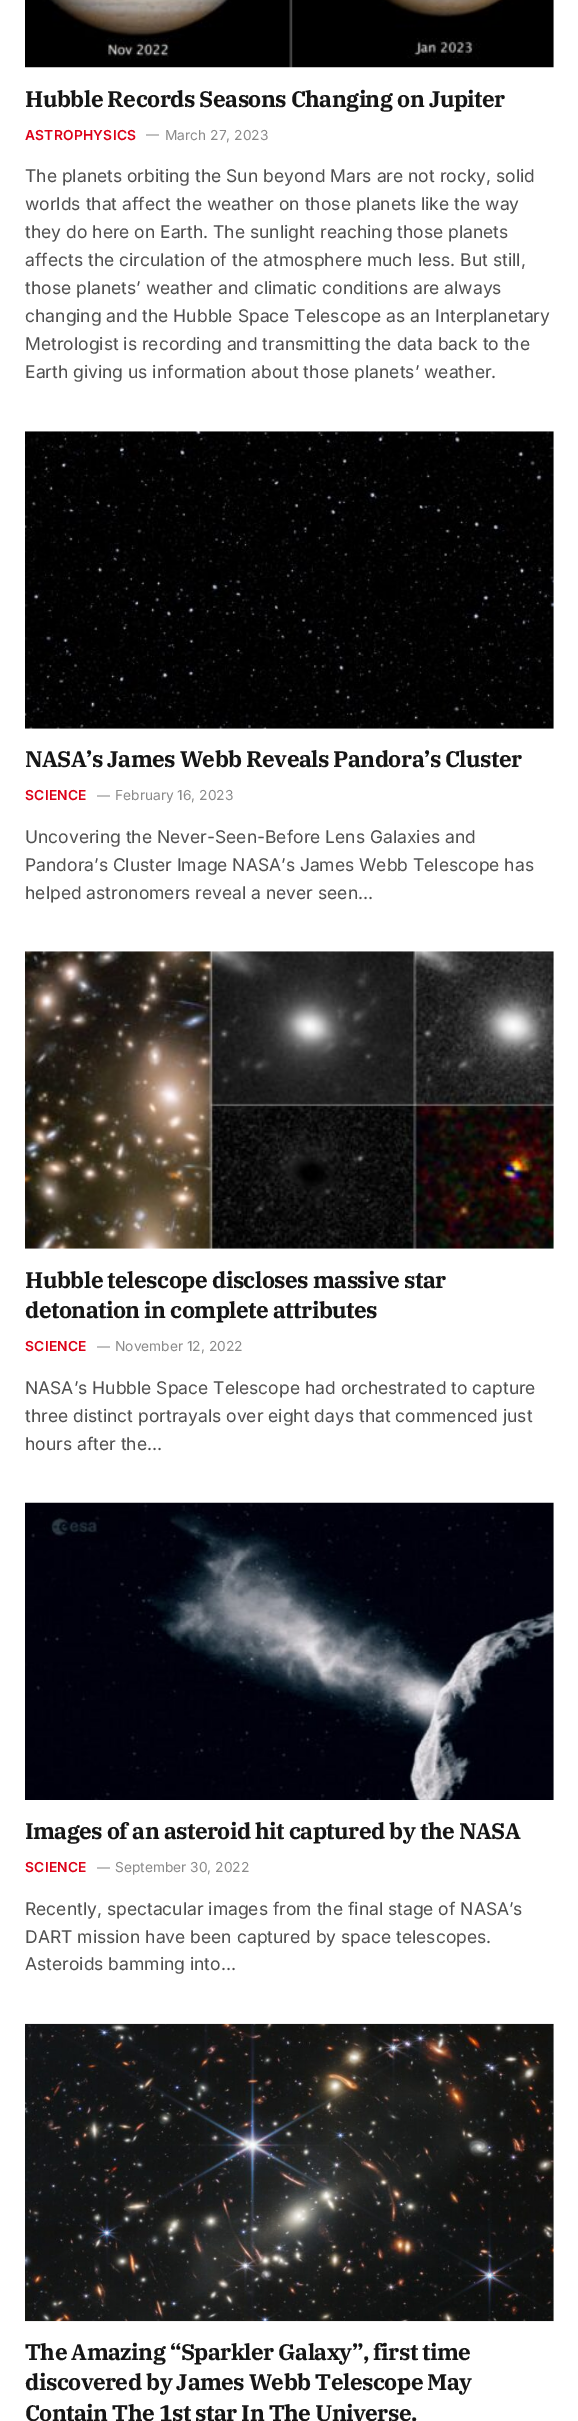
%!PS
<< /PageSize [578 2421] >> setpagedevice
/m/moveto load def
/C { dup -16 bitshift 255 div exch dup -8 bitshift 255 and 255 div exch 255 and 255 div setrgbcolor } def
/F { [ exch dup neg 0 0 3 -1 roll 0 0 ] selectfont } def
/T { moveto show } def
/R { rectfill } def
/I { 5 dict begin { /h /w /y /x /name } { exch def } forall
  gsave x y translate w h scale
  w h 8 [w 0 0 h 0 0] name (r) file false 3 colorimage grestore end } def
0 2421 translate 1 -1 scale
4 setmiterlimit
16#FFFFFF C
0 0 578 2421 R
(1.rgb) 25 0 529 68 I
/IBMPlexSerif-Bold 22.5 F
16#161616 C
25 107 m -.55 0 (Hubble Records Seasons Changing on Jupiter) ashow
/Inter-SemiBold 13.75 F
16#DD0017 C
25 140 m .25 0 (ASTROPHYSICS) ashow
/Inter-Regular 13 F
16#8A8A8A C
(—) 146 139 T
/Inter-Regular 13.75 F
(March 27, 2023) 165 140 T
/Inter-Regular 17.5 F
16#505050 C
(The planets orbiting the Sun beyond Mars are not rocky, solid) 25 182 T
(worlds that affect the weather on those planets like the way) 25 210 T
(they do here on Earth. The sunlight reaching those planets) 25 238 T
(affects the circulation of the atmosphere much less. But still,) 25 266 T
(those planets’ weather and climatic conditions are always) 25 294 T
(changing and the Hubble Space Telescope as an Interplanetary) 25 322 T
(Metrologist is recording and transmitting the data back to the) 25 350 T
(Earth giving us information about those planets’ weather.) 25 378 T
(2.rgb) 25 431 529 298 I
/IBMPlexSerif-Bold 22.5 F
16#161616 C
25 767 m -.55 0 (NASA’s James Webb Reveals Pandora’s Cluster) ashow
/Inter-SemiBold 13.75 F
16#DD0017 C
25 800 m .25 0 (SCIENCE) ashow
/Inter-Regular 13 F
16#8A8A8A C
(—) 97 800 T
/Inter-Regular 13.75 F
(February 16, 2023) 115 800 T
/Inter-Regular 17.5 F
16#505050 C
(Uncovering the Never-Seen-Before Lens Galaxies and) 25 843 T
(Pandora’s Cluster Image NASA’s James Webb Telescope has) 25 871 T
(helped astronomers reveal a never seen…) 25 899 T
(3.rgb) 25 951 529 298 I
/IBMPlexSerif-Bold 22.5 F
16#161616 C
25 1288 m -.55 0 (Hubble telescope discloses massive star) ashow
25 1318 m -.55 0 (detonation in complete attributes) ashow
/Inter-SemiBold 13.75 F
16#DD0017 C
25 1351 m .25 0 (SCIENCE) ashow
/Inter-Regular 13 F
16#8A8A8A C
(—) 97 1351 T
/Inter-Regular 13.75 F
(November 12, 2022) 115 1351 T
/Inter-Regular 17.5 F
16#505050 C
(NASA’s Hubble Space Telescope had orchestrated to capture) 25 1394 T
(three distinct portrayals over eight days that commenced just) 25 1422 T
(hours after the…) 25 1450 T
(4.rgb) 25 1502 529 298 I
/IBMPlexSerif-Bold 22.5 F
16#161616 C
25 1839 m -.55 0 (Images of an asteroid hit captured by the NASA) ashow
/Inter-SemiBold 13.75 F
16#DD0017 C
25 1872 m .25 0 (SCIENCE) ashow
/Inter-Regular 13 F
16#8A8A8A C
(—) 97 1872 T
/Inter-Regular 13.75 F
(September 30, 2022) 115 1872 T
/Inter-Regular 17.5 F
16#505050 C
(Recently, spectacular images from the final stage of NASA’s) 25 1915 T
(DART mission have been captured by space telescopes.) 25 1943 T
(Asteroids bamming into…) 25 1970 T
(5.rgb) 25 2023 529 299 I
/IBMPlexSerif-Bold 22.5 F
16#161616 C
25 2360 m -.55 0 (The Amazing “Sparkler Galaxy”, first time) ashow
25 2390 m -.55 0 (discovered by James Webb Telescope May) ashow
25 2421 m -.55 0 (Contain The 1st star In The Universe.) ashow
showpage
